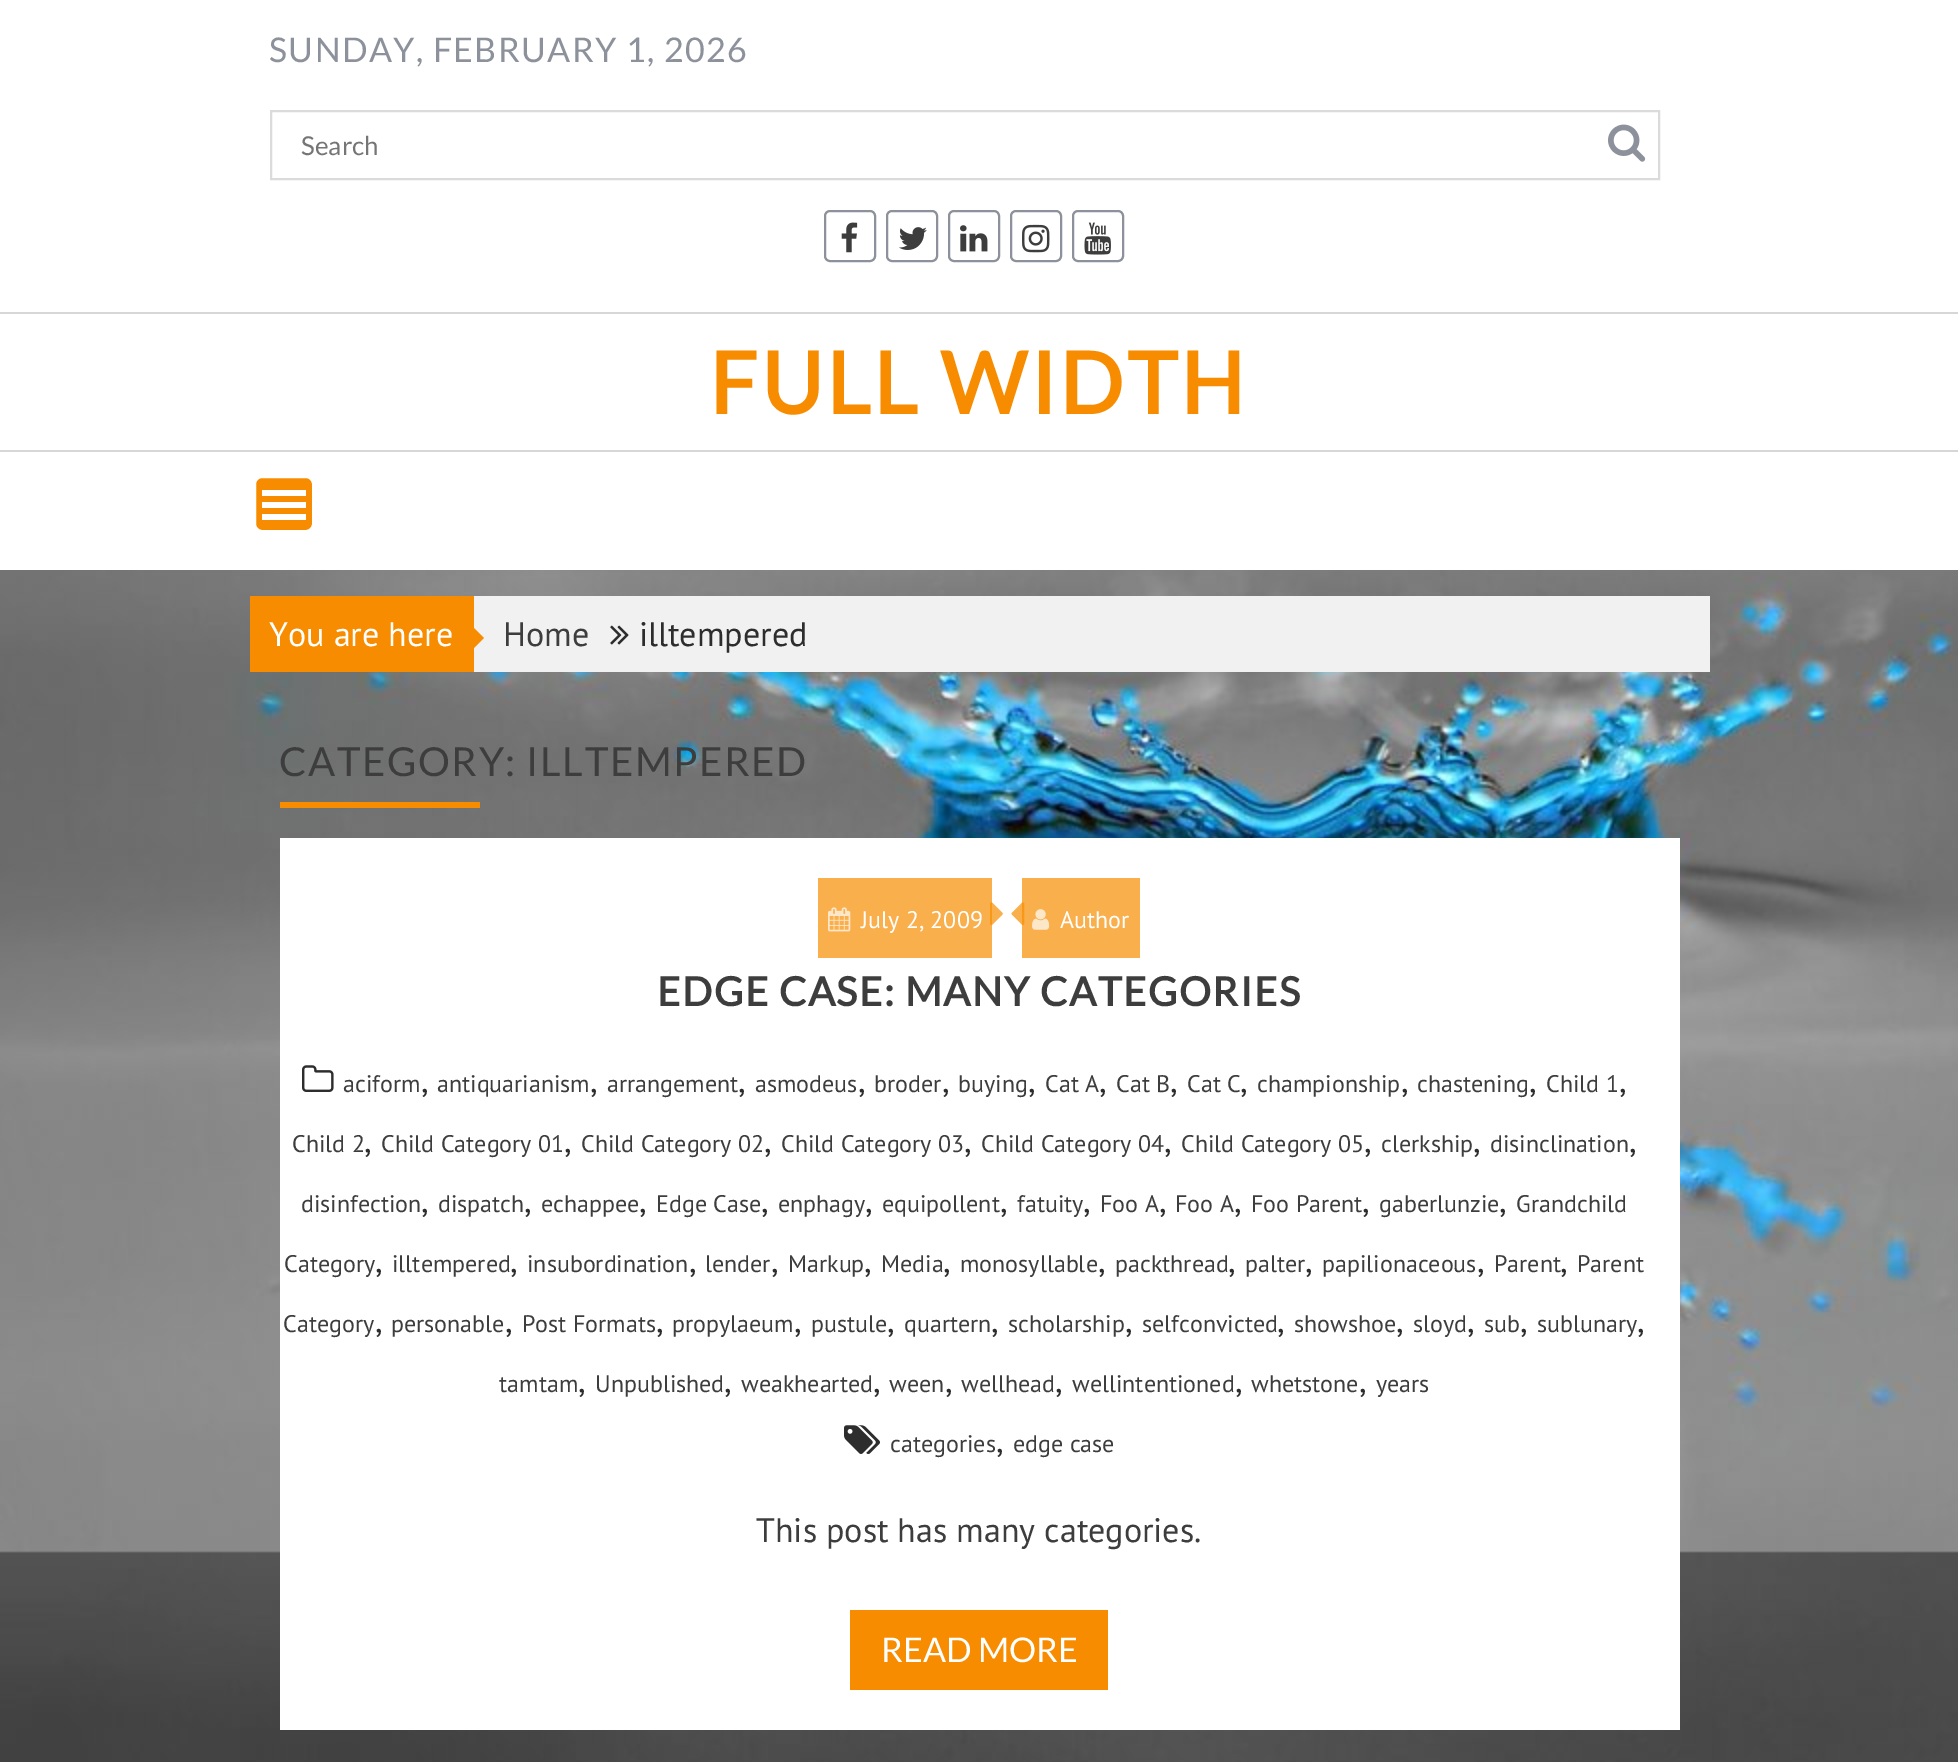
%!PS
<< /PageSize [1958 1762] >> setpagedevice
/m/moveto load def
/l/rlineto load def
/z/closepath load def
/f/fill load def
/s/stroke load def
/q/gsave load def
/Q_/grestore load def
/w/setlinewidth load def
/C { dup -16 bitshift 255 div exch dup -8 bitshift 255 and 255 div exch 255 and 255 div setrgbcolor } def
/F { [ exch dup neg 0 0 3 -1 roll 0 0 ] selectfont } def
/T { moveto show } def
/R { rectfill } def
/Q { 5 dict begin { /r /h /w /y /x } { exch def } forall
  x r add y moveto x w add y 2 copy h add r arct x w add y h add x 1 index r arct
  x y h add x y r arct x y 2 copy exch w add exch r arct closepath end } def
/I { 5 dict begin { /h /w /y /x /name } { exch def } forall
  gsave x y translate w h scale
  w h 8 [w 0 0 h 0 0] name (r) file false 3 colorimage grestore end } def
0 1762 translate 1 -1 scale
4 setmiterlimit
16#FFFFFF C
0 0 1958 1762 R
(1.rgb) 0 570 1958 1192 I
16#D7D7D7 C
0 312 1958 2 R
/Lato-Regular 34 F
16#8C919B C
269 62 m 1.4 0 (SUNDAY, FEBRUARY 1, 2026) ashow
16#DBDBDB C
2 w
271 111 1388 68 rectstroke
/Lato-Regular 26 F
16#757575 C
(Search) 301 155 T
(2.rgb) 1608 124 38 38 I
16#8C919B C
825 211 50 50 5 Q s
(3.rgb) 841 222 17 31 I
887 211 50 50 5 Q s
(4.rgb) 899 227 28 23 I
949 211 50 50 5 Q s
(5.rgb) 960 225 28 27 I
1011 211 50 50 5 Q s
(6.rgb) 1022 224 28 29 I
1073 211 50 50 5 Q s
(7.rgb) 1084 222 27 33 I
/Lato-Bold 85 F
16#F88C00 C
709 414 m 3.4 0 (FULL WIDTH) ashow
16#D7D7D7 C
0 450 1958 2 R
16#F88C00 C
255 477 58 54 7 Q q f Q_
16#FFFFFF C
s
262 514 44 6 R
262 502 44 6 R
262 490 44 6 R
16#F1F1F1 C
474 596 1236 76 R
16#F88C00 C
250 596 224 76 R
/PTSans-Regular 34 F
16#FFFFFF C
(You are here) 269 646 T
16#F88C00 C
474 648 m 0 -20 l 10 10 l z f
16#3D3D3D C
(Home) 503 646 T
(8.rgb) 610 625 19 20 I
16#2D2D2D C
(illtempered) 639 646 T
/Lato-Regular 40 F
16#3D3D3D C
279 776 m 1.6 0 (CATEGORY: ILLTEMPERED) ashow
16#F88C00 C
280 802 200 6 R
16#FFFFFF C
280 838 1400 892 R
16#FAAF4D C
818 878 174 80 R
(9.rgb) 828 907 23 25 I
/PTSans-Regular 24 F
16#FFFFFF C
(July 2, 2009) 861 928 T
(10.rgb) 990 902 13 24 I
16#FAAF4D C
1022 878 118 80 R
(11.rgb) 1011 902 14 23 I
(12.rgb) 1032 909 18 21 I
16#FFFFFF C
(Author) 1060 928 T
/Lato-Bold 40 F
16#3D3D3D C
657 1006 m 1.6 0 (EDGE CASE: MANY CATEGORIES) ashow
(13.rgb) 302 1065 32 27 I
/PTSans-Regular 24 F
(aciform) 343 1092 T
/PTSans-Regular 34 F
16#2D2D2D C
(,) 421 1092 T
/PTSans-Regular 24 F
16#3D3D3D C
(antiquarianism) 437 1092 T
/PTSans-Regular 34 F
16#2D2D2D C
(,) 590 1092 T
/PTSans-Regular 24 F
16#3D3D3D C
(arrangement) 607 1092 T
/PTSans-Regular 34 F
16#2D2D2D C
(,) 738 1092 T
/PTSans-Regular 24 F
16#3D3D3D C
(asmodeus) 755 1092 T
/PTSans-Regular 34 F
16#2D2D2D C
(,) 858 1092 T
/PTSans-Regular 24 F
16#3D3D3D C
(broder) 874 1092 T
/PTSans-Regular 34 F
16#2D2D2D C
(,) 942 1092 T
/PTSans-Regular 24 F
16#3D3D3D C
(buying) 958 1092 T
/PTSans-Regular 34 F
16#2D2D2D C
(,) 1028 1092 T
/PTSans-Regular 24 F
16#3D3D3D C
(Cat A) 1045 1092 T
/PTSans-Regular 34 F
16#2D2D2D C
(,) 1099 1092 T
/PTSans-Regular 24 F
16#3D3D3D C
(Cat B) 1116 1092 T
/PTSans-Regular 34 F
16#2D2D2D C
(,) 1170 1092 T
/PTSans-Regular 24 F
16#3D3D3D C
(Cat C) 1187 1092 T
/PTSans-Regular 34 F
16#2D2D2D C
(,) 1240 1092 T
/PTSans-Regular 24 F
16#3D3D3D C
(championship) 1257 1092 T
/PTSans-Regular 34 F
16#2D2D2D C
(,) 1401 1092 T
/PTSans-Regular 24 F
16#3D3D3D C
(chastening) 1417 1092 T
/PTSans-Regular 34 F
16#2D2D2D C
(,) 1529 1092 T
/PTSans-Regular 24 F
16#3D3D3D C
(Child 1) 1546 1092 T
/PTSans-Regular 34 F
16#2D2D2D C
(,) 1619 1092 T
/PTSans-Regular 24 F
16#3D3D3D C
(Child 2) 292 1152 T
/PTSans-Regular 34 F
16#2D2D2D C
(,) 364 1152 T
/PTSans-Regular 24 F
16#3D3D3D C
(Child Category 01) 381 1152 T
/PTSans-Regular 34 F
16#2D2D2D C
(,) 564 1152 T
/PTSans-Regular 24 F
16#3D3D3D C
(Child Category 02) 581 1152 T
/PTSans-Regular 34 F
16#2D2D2D C
(,) 764 1152 T
/PTSans-Regular 24 F
16#3D3D3D C
(Child Category 03) 781 1152 T
/PTSans-Regular 34 F
16#2D2D2D C
(,) 964 1152 T
/PTSans-Regular 24 F
16#3D3D3D C
(Child Category 04) 981 1152 T
/PTSans-Regular 34 F
16#2D2D2D C
(,) 1164 1152 T
/PTSans-Regular 24 F
16#3D3D3D C
(Child Category 05) 1181 1152 T
/PTSans-Regular 34 F
16#2D2D2D C
(,) 1364 1152 T
/PTSans-Regular 24 F
16#3D3D3D C
(clerkship) 1381 1152 T
/PTSans-Regular 34 F
16#2D2D2D C
(,) 1473 1152 T
/PTSans-Regular 24 F
16#3D3D3D C
(disinclination) 1490 1152 T
/PTSans-Regular 34 F
16#2D2D2D C
(,) 1629 1152 T
/PTSans-Regular 24 F
16#3D3D3D C
(disinfection) 301 1212 T
/PTSans-Regular 34 F
16#2D2D2D C
(,) 421 1212 T
/PTSans-Regular 24 F
16#3D3D3D C
(dispatch) 438 1212 T
/PTSans-Regular 34 F
16#2D2D2D C
(,) 524 1212 T
/PTSans-Regular 24 F
16#3D3D3D C
(echappee) 541 1212 T
/PTSans-Regular 34 F
16#2D2D2D C
(,) 639 1212 T
/PTSans-Regular 24 F
16#3D3D3D C
(Edge Case) 656 1212 T
/PTSans-Regular 34 F
16#2D2D2D C
(,) 761 1212 T
/PTSans-Regular 24 F
16#3D3D3D C
(enphagy) 778 1212 T
/PTSans-Regular 34 F
16#2D2D2D C
(,) 865 1212 T
/PTSans-Regular 24 F
16#3D3D3D C
(equipollent) 882 1212 T
/PTSans-Regular 34 F
16#2D2D2D C
(,) 1000 1212 T
/PTSans-Regular 24 F
16#3D3D3D C
(fatuity) 1017 1212 T
/PTSans-Regular 34 F
16#2D2D2D C
(,) 1083 1212 T
/PTSans-Regular 24 F
16#3D3D3D C
(Foo A) 1100 1212 T
/PTSans-Regular 34 F
16#2D2D2D C
(,) 1159 1212 T
/PTSans-Regular 24 F
16#3D3D3D C
(Foo A) 1175 1212 T
/PTSans-Regular 34 F
16#2D2D2D C
(,) 1234 1212 T
/PTSans-Regular 24 F
16#3D3D3D C
(Foo Parent) 1251 1212 T
/PTSans-Regular 34 F
16#2D2D2D C
(,) 1362 1212 T
/PTSans-Regular 24 F
16#3D3D3D C
(gaberlunzie) 1379 1212 T
/PTSans-Regular 34 F
16#2D2D2D C
(,) 1499 1212 T
/PTSans-Regular 24 F
16#3D3D3D C
(Grandchild) 1516 1212 T
(Category) 284 1272 T
/PTSans-Regular 34 F
16#2D2D2D C
(,) 375 1272 T
/PTSans-Regular 24 F
16#3D3D3D C
(illtempered) 392 1272 T
/PTSans-Regular 34 F
16#2D2D2D C
(,) 510 1272 T
/PTSans-Regular 24 F
16#3D3D3D C
(insubordination) 527 1272 T
/PTSans-Regular 34 F
16#2D2D2D C
(,) 689 1272 T
/PTSans-Regular 24 F
16#3D3D3D C
(lender) 705 1272 T
/PTSans-Regular 34 F
16#2D2D2D C
(,) 771 1272 T
/PTSans-Regular 24 F
16#3D3D3D C
(Markup) 788 1272 T
/PTSans-Regular 34 F
16#2D2D2D C
(,) 864 1272 T
/PTSans-Regular 24 F
16#3D3D3D C
(Media) 881 1272 T
/PTSans-Regular 34 F
16#2D2D2D C
(,) 943 1272 T
/PTSans-Regular 24 F
16#3D3D3D C
(monosyllable) 960 1272 T
/PTSans-Regular 34 F
16#2D2D2D C
(,) 1098 1272 T
/PTSans-Regular 24 F
16#3D3D3D C
(packthread) 1115 1272 T
/PTSans-Regular 34 F
16#2D2D2D C
(,) 1228 1272 T
/PTSans-Regular 24 F
16#3D3D3D C
(palter) 1245 1272 T
/PTSans-Regular 34 F
16#2D2D2D C
(,) 1305 1272 T
/PTSans-Regular 24 F
16#3D3D3D C
(papilionaceous) 1322 1272 T
/PTSans-Regular 34 F
16#2D2D2D C
(,) 1477 1272 T
/PTSans-Regular 24 F
16#3D3D3D C
(Parent) 1494 1272 T
/PTSans-Regular 34 F
16#2D2D2D C
(,) 1560 1272 T
/PTSans-Regular 24 F
16#3D3D3D C
(Parent) 1577 1272 T
(Category) 283 1332 T
/PTSans-Regular 34 F
16#2D2D2D C
(,) 375 1332 T
/PTSans-Regular 24 F
16#3D3D3D C
(personable) 391 1332 T
/PTSans-Regular 34 F
16#2D2D2D C
(,) 505 1332 T
/PTSans-Regular 24 F
16#3D3D3D C
(Post Formats) 522 1332 T
/PTSans-Regular 34 F
16#2D2D2D C
(,) 656 1332 T
/PTSans-Regular 24 F
16#3D3D3D C
(propylaeum) 672 1332 T
/PTSans-Regular 34 F
16#2D2D2D C
(,) 794 1332 T
/PTSans-Regular 24 F
16#3D3D3D C
(pustule) 811 1332 T
/PTSans-Regular 34 F
16#2D2D2D C
(,) 887 1332 T
/PTSans-Regular 24 F
16#3D3D3D C
(quartern) 904 1332 T
/PTSans-Regular 34 F
16#2D2D2D C
(,) 991 1332 T
/PTSans-Regular 24 F
16#3D3D3D C
(scholarship) 1008 1332 T
/PTSans-Regular 34 F
16#2D2D2D C
(,) 1125 1332 T
/PTSans-Regular 24 F
16#3D3D3D C
(selfconvicted) 1142 1332 T
/PTSans-Regular 34 F
16#2D2D2D C
(,) 1277 1332 T
/PTSans-Regular 24 F
16#3D3D3D C
(showshoe) 1294 1332 T
/PTSans-Regular 34 F
16#2D2D2D C
(,) 1396 1332 T
/PTSans-Regular 24 F
16#3D3D3D C
(sloyd) 1413 1332 T
/PTSans-Regular 34 F
16#2D2D2D C
(,) 1467 1332 T
/PTSans-Regular 24 F
16#3D3D3D C
(sub) 1484 1332 T
/PTSans-Regular 34 F
16#2D2D2D C
(,) 1520 1332 T
/PTSans-Regular 24 F
16#3D3D3D C
(sublunary) 1537 1332 T
/PTSans-Regular 34 F
16#2D2D2D C
(,) 1637 1332 T
/PTSans-Regular 24 F
16#3D3D3D C
(tamtam) 499 1392 T
/PTSans-Regular 34 F
16#2D2D2D C
(,) 578 1392 T
/PTSans-Regular 24 F
16#3D3D3D C
(Unpublished) 595 1392 T
/PTSans-Regular 34 F
16#2D2D2D C
(,) 724 1392 T
/PTSans-Regular 24 F
16#3D3D3D C
(weakhearted) 741 1392 T
/PTSans-Regular 34 F
16#2D2D2D C
(,) 873 1392 T
/PTSans-Regular 24 F
16#3D3D3D C
(ween) 889 1392 T
/PTSans-Regular 34 F
16#2D2D2D C
(,) 945 1392 T
/PTSans-Regular 24 F
16#3D3D3D C
(wellhead) 961 1392 T
/PTSans-Regular 34 F
16#2D2D2D C
(,) 1055 1392 T
/PTSans-Regular 24 F
16#3D3D3D C
(wellintentioned) 1072 1392 T
/PTSans-Regular 34 F
16#2D2D2D C
(,) 1235 1392 T
/PTSans-Regular 24 F
16#3D3D3D C
(whetstone) 1251 1392 T
/PTSans-Regular 34 F
16#2D2D2D C
(,) 1359 1392 T
/PTSans-Regular 24 F
16#3D3D3D C
(years) 1376 1392 T
(14.rgb) 844 1425 36 29 I
(categories) 890 1452 T
/PTSans-Regular 34 F
16#2D2D2D C
(,) 996 1452 T
/PTSans-Regular 24 F
16#3D3D3D C
(edge case) 1013 1452 T
/PTSans-Regular 34 F
(This post has many categories.) 756 1542 T
16#F88C00 C
850 1610 258 80 R
/Lato-Regular 34 F
16#FFFFFF C
(READ MORE) 881 1662 T
showpage
